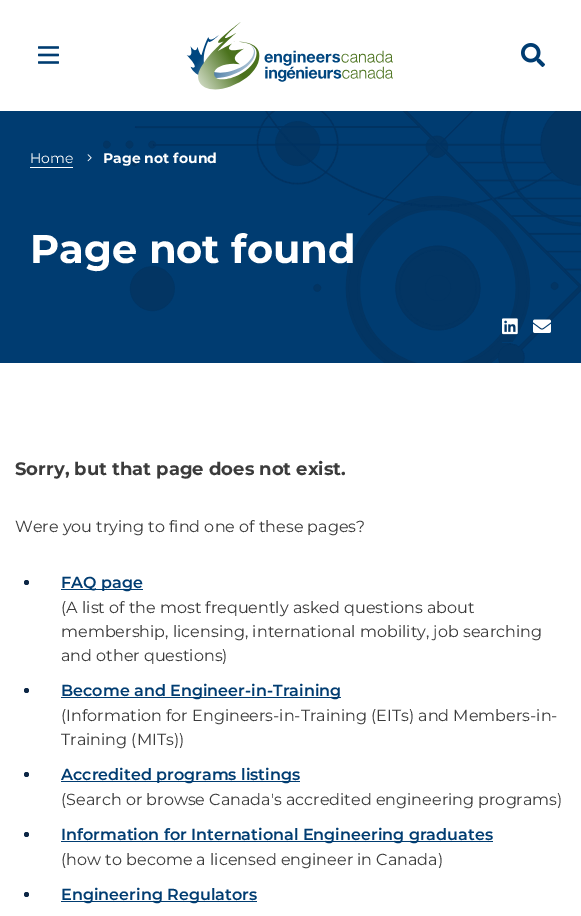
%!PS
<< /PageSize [581 916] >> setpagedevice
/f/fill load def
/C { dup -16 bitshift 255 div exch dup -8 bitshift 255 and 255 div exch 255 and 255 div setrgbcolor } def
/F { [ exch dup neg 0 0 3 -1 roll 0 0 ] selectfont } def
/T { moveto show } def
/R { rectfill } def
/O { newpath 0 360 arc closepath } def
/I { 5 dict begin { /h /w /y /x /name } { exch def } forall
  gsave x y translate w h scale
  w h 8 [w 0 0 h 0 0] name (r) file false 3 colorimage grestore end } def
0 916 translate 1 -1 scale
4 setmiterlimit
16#FFFFFF C
0 0 581 916 R
(1.rgb) 38 46 21 18 I
(2.rgb) 186 22 207 68 I
(3.rgb) 521 43 24 24 I
16#003C71 C
0 111 581 252 R
(4.rgb) 103 111 478 252 I
/Montserrat-Regular 14 F
16#FFFFFF C
(Home) 30 163 T
30 167 43 1 R
(5.rgb) 87 154 5 8 I
/Montserrat-Bold 14 F
(Page not found) 103 163 T
/Montserrat-Bold 40 F
(Page not found) 30 263 T
16#003C71 C
502 342 16 1 R
(6.rgb) 502 318 16 17 I
(7.rgb) 533 319 18 14 I
/Montserrat-Bold 18 F
16#3B3B3B C
(Sorry, but that page does not exist.) 15 475 T
/Montserrat-Regular 16 F
(Were you trying to find one of these pages?) 15 532 T
16#0C2645 C
26.5 582.5 2.5 O f
16#003C71 C
61 589 82 1 R
/Montserrat-SemiBold 16 F
(FAQ page) 61 588 T
/Montserrat-Regular 16 F
16#3B3B3B C
(\(A list of the most frequently asked questions about) 61 613 T
(membership, licensing, international mobility, job searching) 61 637 T
(and other questions\)) 61 661 T
16#0C2645 C
26.5 690.5 2.5 O f
16#003C71 C
61 697 280 1 R
/Montserrat-SemiBold 16 F
(Become and Engineer-in-Training) 61 696 T
/Montserrat-Regular 16 F
16#3B3B3B C
(\(Information for Engineers-in-Training \(EITs\) and Members-in-) 61 721 T
(Training \(MITs\)\)) 61 745 T
16#0C2645 C
26.5 774.5 2.5 O f
16#003C71 C
61 781 239 1 R
/Montserrat-SemiBold 16 F
(Accredited programs listings) 61 780 T
/Montserrat-Regular 16 F
16#3B3B3B C
(\(Search or browse Canada's accredited engineering programs\)) 61 805 T
16#0C2645 C
26.5 834.5 2.5 O f
16#003C71 C
61 841 432 1 R
/Montserrat-SemiBold 16 F
(Information for International Engineering graduates) 61 840 T
/Montserrat-Regular 16 F
16#3B3B3B C
(\(how to become a licensed engineer in Canada\)) 61 865 T
16#0C2645 C
26.5 894.5 2.5 O f
16#003C71 C
61 901 196 1 R
/Montserrat-SemiBold 16 F
(Engineering Regulators) 61 900 T
showpage
